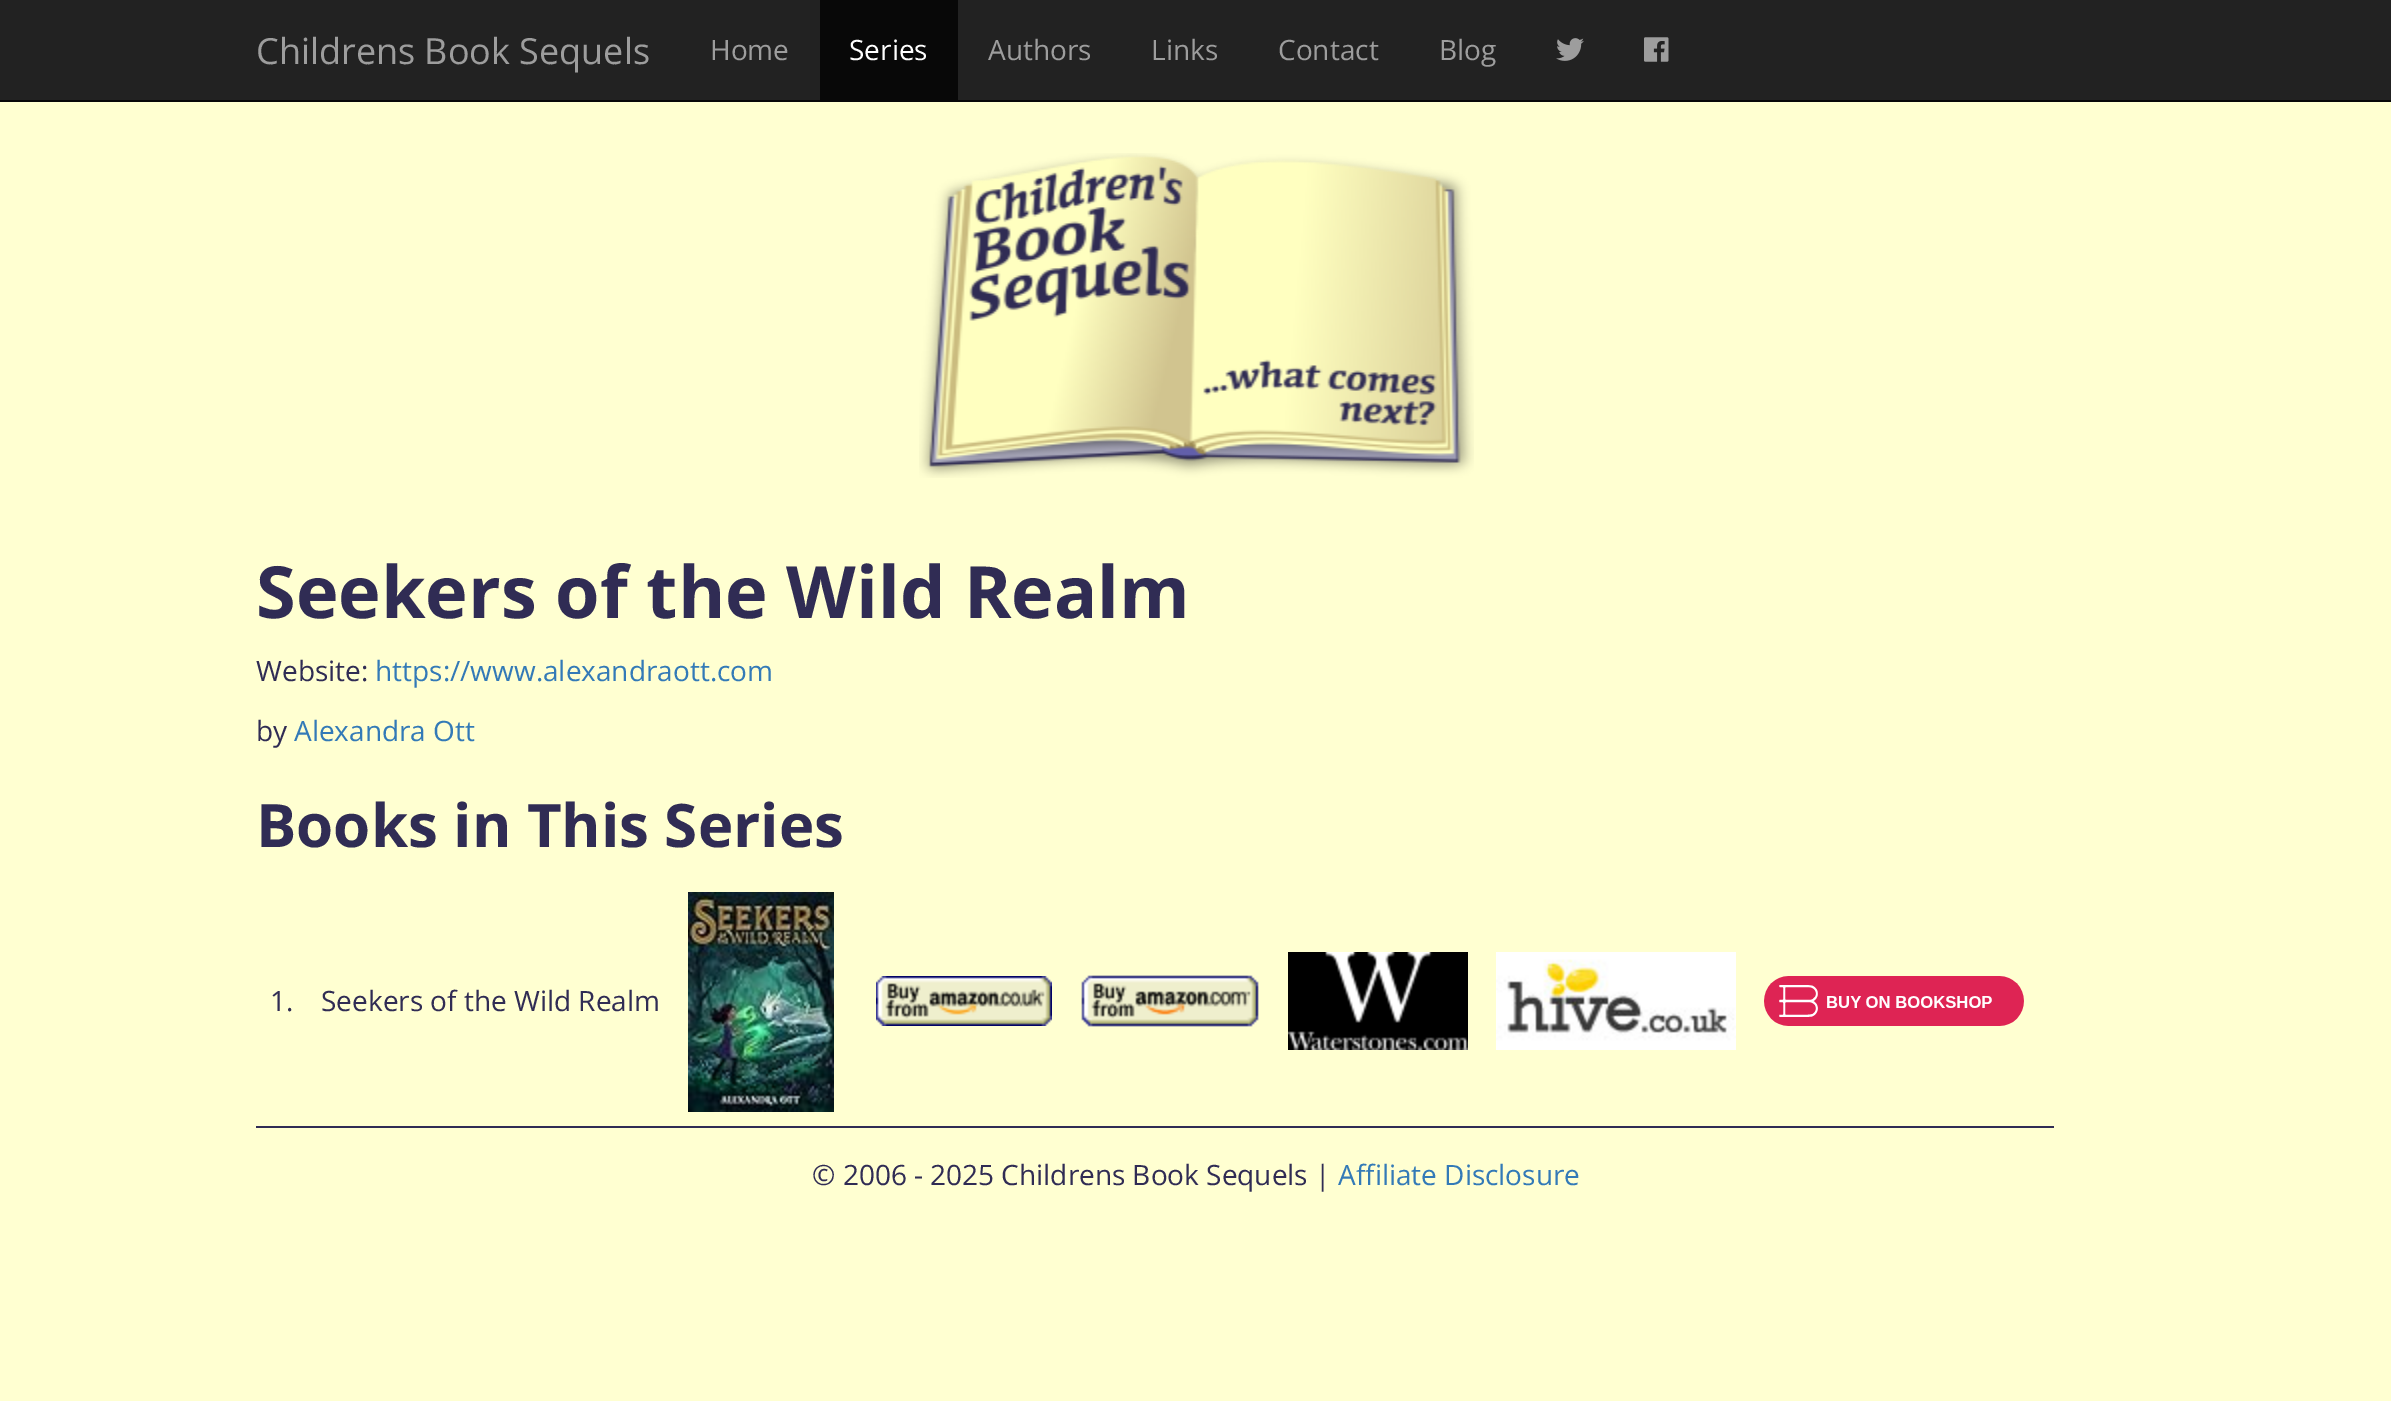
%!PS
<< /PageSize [2391 1401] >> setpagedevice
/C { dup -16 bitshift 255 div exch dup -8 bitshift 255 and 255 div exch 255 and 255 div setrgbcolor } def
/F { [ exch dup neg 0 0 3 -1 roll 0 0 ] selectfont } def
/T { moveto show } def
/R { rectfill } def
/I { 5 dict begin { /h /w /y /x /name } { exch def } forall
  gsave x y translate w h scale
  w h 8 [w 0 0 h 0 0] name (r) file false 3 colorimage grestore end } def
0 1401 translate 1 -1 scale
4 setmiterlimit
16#FFFFD1 C
0 0 2391 1401 R
16#222222 C
0 0 2391 100 R
16#080808 C
0 100 2391 2 R
/OpenSans-Regular 36 F
16#9D9D9D C
(Childrens Book Sequels) 256 64 T
/OpenSans-Regular 28 F
(Home) 710 60 T
16#080808 C
820 0 138 100 R
16#FFFFFF C
(Series) 849 60 T
16#9D9D9D C
(Authors) 988 60 T
(Links) 1151 60 T
(Contact) 1278 60 T
(Blog) 1439 60 T
(1.rgb) 1556 38 28 23 I
(2.rgb) 1644 37 25 25 I
(3.rgb) 919 153 555 325 I
/OpenSans-Bold 72 F
16#302C54 C
(Seekers of the Wild Realm) 256 618 T
/OpenSans-Regular 28 F
(Website:) 256 681 T
16#337AB7 C
(https://www.alexandraott.com) 375 681 T
16#302C54 C
(by) 256 741 T
16#337AB7 C
(Alexandra Ott) 294 741 T
/OpenSans-Bold 60 F
16#302C54 C
(Books in This Series) 256 847 T
(4.rgb) 688 892 146 220 I
256 1126 1798 2 R
(5.rgb) 876 976 176 50 I
(6.rgb) 1081 975 178 52 I
(7.rgb) 1288 952 180 98 I
(8.rgb) 1496 952 240 98 I
(9.rgb) 1764 976 260 50 I
/OpenSans-Regular 28 F
(1.) 270 1011 T
(Seekers of the Wild Realm) 321 1011 T
(© 2006 - 2025 Childrens Book Sequels |) 812 1185 T
16#337AB7 C
(Affiliate Disclosure) 1338 1185 T
showpage
